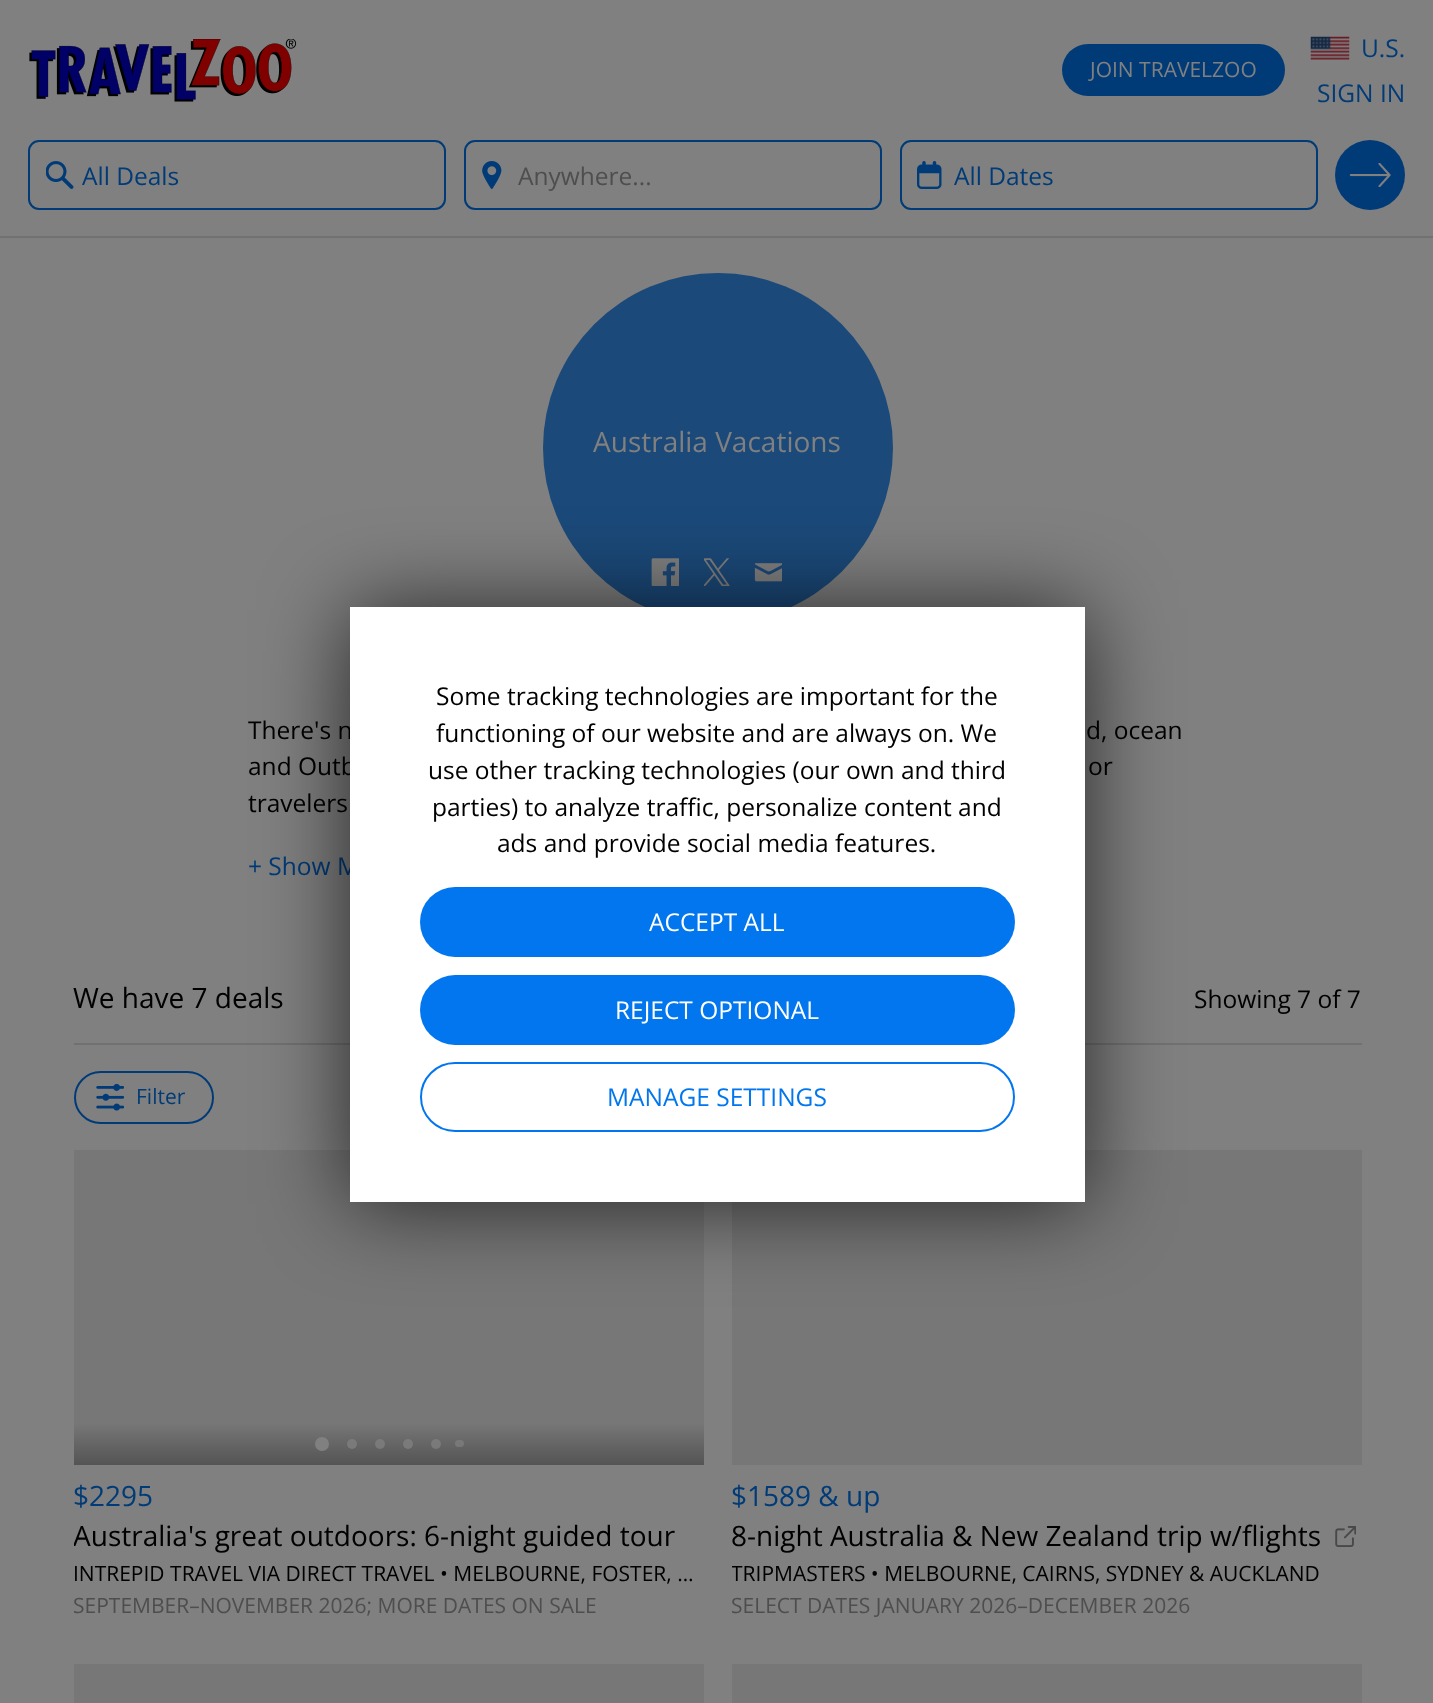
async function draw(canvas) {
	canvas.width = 1433;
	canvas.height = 1703;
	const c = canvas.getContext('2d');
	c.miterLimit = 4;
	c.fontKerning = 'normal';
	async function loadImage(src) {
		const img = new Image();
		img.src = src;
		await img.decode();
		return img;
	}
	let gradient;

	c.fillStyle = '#808080';
	c.fillRect(0, 0, 1433, 1703);
	c.drawImage(await loadImage('img1.png'), 29, 39, 268, 63);
	c.fillStyle = '#013b77';
	c.beginPath();
	c.roundRect(1062, 44, 223, 52, 26);
	c.fill();
	c.font = '21px Open Sans';
	c.fillStyle = '#808080';
	c.fillText('JOIN TRAVELZOO', 1090, 77);
	c.drawImage(await loadImage('img2.png'), 1310, 36, 40, 24);
	c.font = '24.5px Open Sans';
	c.fillStyle = '#013b77';
	c.fillText('U.S.', 1361, 57);
	c.fillText('SIGN IN', 1317, 102);
	c.fillStyle = '#717171';
	c.fillRect(0, 236, 1433, 2);
	c.beginPath();
	c.roundRect(29, 141, 416, 68, 10);
	c.strokeStyle = '#013b77';
	c.lineWidth = 2;
	c.stroke();
	c.drawImage(await loadImage('img3.png'), 46, 161, 28, 28);
	c.fillStyle = '#013b77';
	c.fillText('All Deals', 82, 185);
	c.beginPath();
	c.roundRect(465, 141, 416, 68, 10);
	c.stroke();
	c.drawImage(await loadImage('img4.png'), 482, 161, 20, 28);
	c.fillStyle = '#4e4e4e';
	c.fillText('Anywhere...', 518, 185);
	c.beginPath();
	c.roundRect(901, 141, 416, 68, 10);
	c.stroke();
	c.drawImage(await loadImage('img5.png'), 917, 161, 25, 28);
	c.fillStyle = '#013b77';
	c.fillText('All Dates', 954, 185);
	c.beginPath();
	c.arc(1370, 175, 35, 0, 2 * Math.PI);
	c.fill();
	c.drawImage(await loadImage('img6.png'), 1349, 163, 42, 24);
	c.fillStyle = '#1b4979';
	c.beginPath();
	c.arc(718, 448, 175, 0, 2 * Math.PI);
	c.fill();
	c.font = '28px Open Sans';
	c.fillStyle = '#808080';
	c.fillText('Australia Vacations', 593, 452);
	c.drawImage(await loadImage('img7.png'), 651, 558, 28, 28);
	c.drawImage(await loadImage('img8.png'), 704, 558, 26, 28);
	c.drawImage(await loadImage('img9.png'), 754, 563, 28, 19);
	c.font = '24.5px Open Sans';
	c.fillStyle = '#000';
	for (const [text, x, y] of [
		['There\'s n', 248, 739],
		['d, ocean', 1086, 739],
		['and Outb', 248, 775],
		['or', 1088, 775],
		['travelers', 248, 812],
	]) {
		c.fillText(text, x, y);
	}
	c.fillStyle = '#013b77';
	c.fillText('+ Show M', 248, 875);
	c.font = '28px Open Sans';
	c.fillStyle = '#000';
	c.fillText('We have 7 deals', 73, 1008);
	c.font = '24.5px Open Sans';
	c.fillText('Showing 7 of 7', 1194, 1008);
	c.fillStyle = '#717171';
	c.fillRect(74, 1043, 1288, 2);
	c.beginPath();
	c.roundRect(75, 1072, 138, 51, 25.5);
	c.stroke();
	c.drawImage(await loadImage('img10.png'), 96, 1083, 28, 28);
	c.font = '21px Open Sans';
	c.fillStyle = '#013b77';
	c.fillText('Filter', 136, 1104);
	c.fillStyle = '#777';
	c.fillRect(74, 1150, 630, 273);
	gradient = c.createLinearGradient(389, 1423, 389, 1465);
	gradient.addColorStop(0, '#777');
	gradient.addColorStop(1, '#545454');
	c.fillStyle = gradient;
	c.fillRect(74, 1423, 630, 42);
	c.fillStyle = '#808080';
	c.beginPath();
	c.arc(322, 1444, 7, 0, 2 * Math.PI);
	c.fill();
	c.fillStyle = '#808080cc';
	c.beginPath();
	c.arc(352, 1444, 5, 0, 2 * Math.PI);
	c.fill();
	c.beginPath();
	c.arc(380, 1444, 5, 0, 2 * Math.PI);
	c.fill();
	c.beginPath();
	c.arc(408, 1444, 5, 0, 2 * Math.PI);
	c.fill();
	c.beginPath();
	c.arc(436, 1444, 5, 0, 2 * Math.PI);
	c.fill();
	c.fillStyle = '#808080b3';
	c.beginPath();
	c.roundRect(455, 1440, 9, 7, 3.5);
	c.fill();
	c.font = '28px Open Sans';
	c.fillStyle = '#013b77';
	c.fillText('$2295', 73, 1506);
	c.save();
	c.beginPath();
	c.rect(74, 1519, 630, 37);
	c.clip();
	c.fillStyle = '#000';
	c.fillText('Australia\'s great outdoors: 6-night guided tour', 73, 1546);
	c.restore();
	c.font = '21px Open Sans';
	c.fillStyle = '#000';
	c.fillText('INTREPID TRAVEL VIA DIRECT TRAVEL • MELBOURNE, FOSTER, …', 73, 1581);
	c.save();
	c.beginPath();
	c.rect(74, 1593, 630, 29);
	c.clip();
	c.fillStyle = '#4e4e4e';
	c.fillText('SEPTEMBER–NOVEMBER 2026; MORE DATES ON SALE', 73, 1613);
	c.restore();
	c.fillStyle = '#777';
	c.fillRect(732, 1150, 630, 315);
	c.font = '28px Open Sans';
	c.fillStyle = '#013b77';
	c.fillText('$1589 & up', 731, 1506);
	c.fillStyle = '#000';
	c.fillText('8-night Australia & New Zealand trip w/flights', 731, 1546);
	c.drawImage(await loadImage('img11.png'), 1335, 1526, 21, 21);
	c.save();
	c.beginPath();
	c.rect(732, 1561, 630, 28);
	c.clip();
	c.font = '21px Open Sans';
	c.fillText('TRIPMASTERS • MELBOURNE, CAIRNS, SYDNEY & AUCKLAND', 731, 1581);
	c.restore();
	c.save();
	c.beginPath();
	c.rect(732, 1593, 630, 29);
	c.clip();
	c.font = '21px Open Sans';
	c.fillStyle = '#4e4e4e';
	c.fillText('SELECT DATES JANUARY 2026–DECEMBER 2026', 731, 1613);
	c.restore();
	c.fillStyle = '#777';
	c.fillRect(74, 1664, 630, 39);
	c.fillRect(732, 1664, 630, 39);
	c.fillStyle = '#000000b3';
	c.filter = 'blur(44px)';
	c.beginPath();
	c.rect(350, 609, 735, 595);
	c.fill();
	c.filter = 'none';
	c.fillStyle = '#fff';
	c.fillRect(350, 607, 735, 595);
	c.font = '24.5px Open Sans';
	c.fillStyle = '#000';
	for (const [text, x, y] of [
		['Some tracking technologies are important for the', 436, 705],
		['functioning of our website and are always on. We', 436, 742],
		['use other tracking technologies (our own and third', 428, 779],
		['parties) to analyze traffic, personalize content and', 432, 816],
		['ads and provide social media features.', 497, 852],
	]) {
		c.fillText(text, x, y);
	}
	c.fillStyle = '#0276ee';
	c.beginPath();
	c.roundRect(420, 887, 595, 70, 35);
	c.fill();
	c.fillStyle = '#fff';
	c.fillText('ACCEPT ALL', 649, 931);
	c.fillStyle = '#0276ee';
	c.beginPath();
	c.roundRect(420, 975, 595, 70, 35);
	c.fill();
	c.fillStyle = '#fff';
	c.fillText('REJECT OPTIONAL', 615, 1019);
	c.beginPath();
	c.roundRect(421, 1063, 593, 68, 34);
	c.strokeStyle = '#0276ee';
	c.stroke();
	c.fillStyle = '#0276ee';
	c.fillText('MANAGE SETTINGS', 607, 1106);
}

draw(document.querySelector('canvas'));
